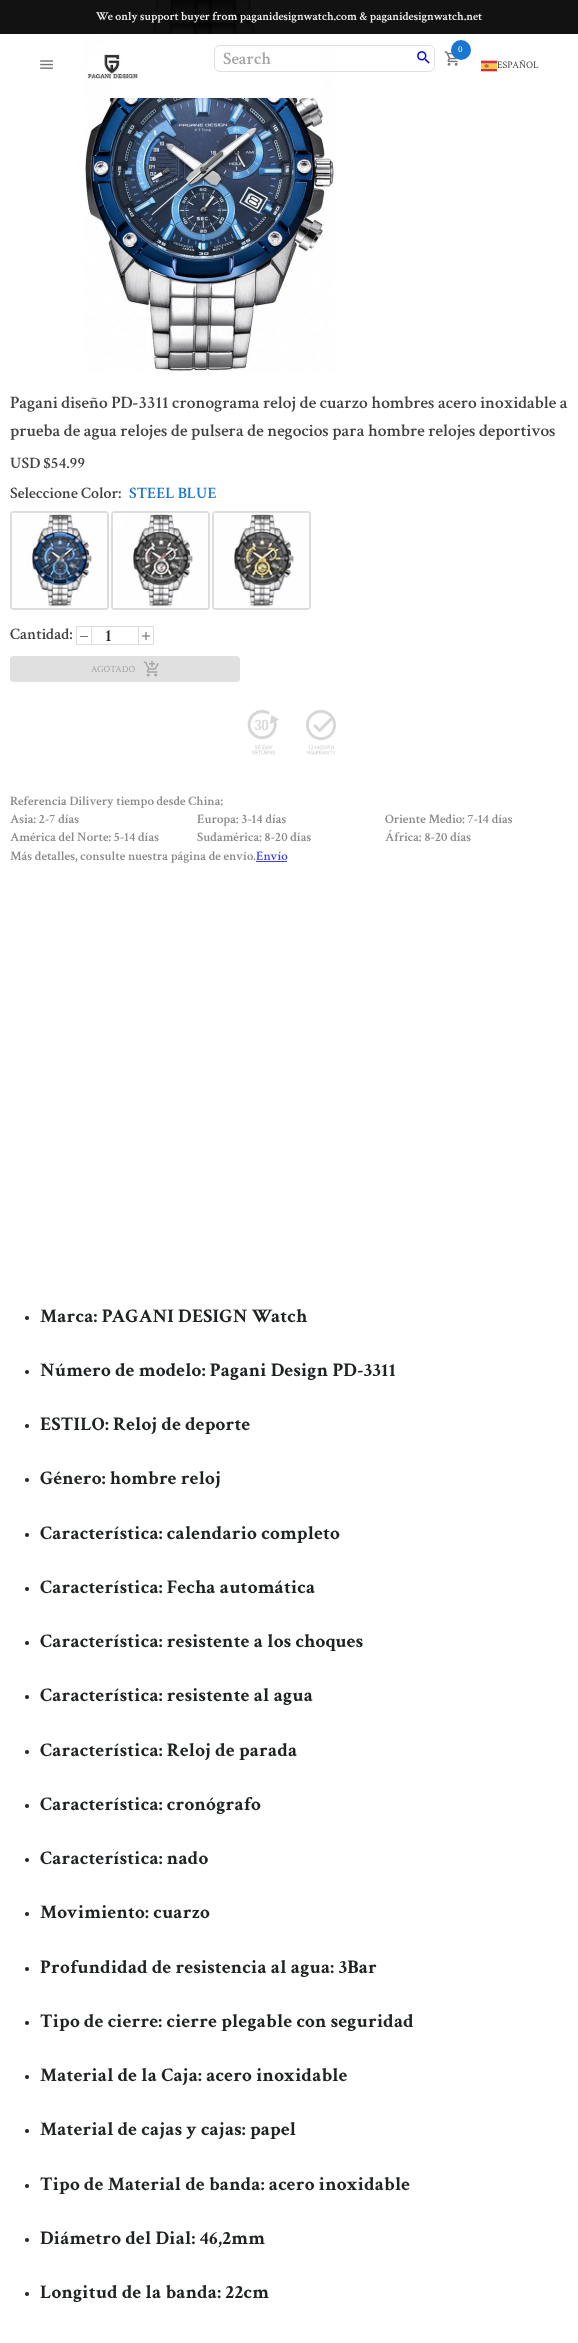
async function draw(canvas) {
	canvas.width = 578;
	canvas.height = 2343;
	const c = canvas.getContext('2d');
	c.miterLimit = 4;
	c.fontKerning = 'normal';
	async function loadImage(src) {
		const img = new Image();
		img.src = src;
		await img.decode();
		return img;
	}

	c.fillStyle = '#fff';
	c.fillRect(0, 0, 578, 2343);
	c.drawImage(await loadImage('img6.png'), 84, 0, 251, 372);
	c.fillStyle = '#000000ed';
	c.fillRect(0, 0, 578, 34);
	c.font = '600 12px Crimson Text';
	c.fillStyle = '#f4f4f4';
	c.fillText('We only support buyer from paganidesignwatch.com & paganidesignwatch.net', 96, 20);
	c.fillStyle = '#fff';
	c.fillRect(110, 34, 212, 64);
	c.drawImage(await loadImage('img1.png'), 40, 60, 13, 9);
	c.drawImage(await loadImage('img2.png'), 87, 54, 51, 25);
	c.drawImage(await loadImage('img3.png'), 444, 51, 14, 15);
	c.fillStyle = '#1976d2';
	c.beginPath();
	c.arc(461, 50, 10, 0, 2 * Math.PI);
	c.fill();
	c.font = '9px Crimson Text';
	c.fillStyle = '#fff';
	c.fillText('0', 458, 52);
	c.beginPath();
	c.roundRect(214.5, 45.5, 220, 26, 5.5);
	c.strokeStyle = '#e0e0e0';
	c.stroke();
	c.font = '600 17.5px Crimson Text';
	c.fillStyle = '#a6a6a6';
	c.fillText('Search', 223, 64);
	c.drawImage(await loadImage('img4.png'), 417, 51, 13, 13);
	c.drawImage(await loadImage('img5.png'), 481, 60, 16, 12);
	c.font = '10px Crimson Text';
	c.fillStyle = '#424242';
	c.fillText('ESPAÑOL', 497, 68);
	c.font = '600 17.5px Crimson Text';
	c.fillText('Pagani diseño PD-3311 cronograma reloj de cuarzo hombres acero inoxidable a', 10, 408);
	c.fillText('prueba de agua relojes de pulsera de negocios para hombre relojes deportivos', 10, 436);
	c.font = '600 16px Crimson Text';
	c.fillText('USD $54.99', 10, 468);
	c.fillText('Seleccione Color:', 10, 498);
	c.fillStyle = '#1976d2';
	c.fillText('STEEL BLUE', 129, 498);
	c.beginPath();
	c.roundRect(11, 512, 97, 97, 3);
	c.strokeStyle = '#ddd';
	c.lineWidth = 2;
	c.stroke();
	c.drawImage(await loadImage('img7.png'), 12, 513, 95, 95);
	c.beginPath();
	c.roundRect(112, 512, 97, 97, 3);
	c.stroke();
	c.drawImage(await loadImage('img8.png'), 113, 513, 95, 95);
	c.beginPath();
	c.roundRect(213, 512, 97, 97, 3);
	c.stroke();
	c.drawImage(await loadImage('img9.png'), 214, 513, 95, 95);
	c.fillStyle = '#424242';
	c.fillText('Cantidad:', 10, 639);
	c.fillStyle = '#757575';
	c.fillRect(80, 636, 8, 1);
	c.drawImage(await loadImage('img10.png'), 141, 631, 10, 10);
	c.lineWidth = 1;
	c.strokeRect(76.5, 626.5, 77, 18);
	c.fillStyle = '#ddd';
	c.fillRect(138, 627, 1, 17);
	c.fillRect(91, 627, 1, 17);
	c.font = '600 17.5px Crimson Text';
	c.fillStyle = '#202324';
	c.fillText('1', 105, 641);
	c.fillStyle = '#e0e0e0';
	c.beginPath();
	c.roundRect(10, 656, 230, 26, 4);
	c.fill();
	c.font = '9.5px Crimson Text';
	c.fillStyle = '#a6a6a6';
	c.fillText('AGOTADO', 91, 672);
	c.drawImage(await loadImage('img11.png'), 143, 660, 16, 17);
	c.drawImage(await loadImage('img12.png'), 247, 709, 32, 46);
	c.drawImage(await loadImage('img13.png'), 306, 709, 30, 46);
	c.font = '600 13px Crimson Text';
	c.fillStyle = '#898989';
	for (const [text, x, y] of [
		['Referencia Dilivery tiempo desde China:', 10, 805],
		['Asia: 2-7 días', 10, 823],
		['Europa: 3-14 días', 197, 823],
		['Oriente Medio: 7-14 días', 385, 823],
		['América del Norte: 5-14 días', 10, 841],
		['Sudamérica: 8-20 días', 197, 841],
		['África: 8-20 días', 385, 841],
		['Más detalles, consulte nuestra página de envío.', 10, 860],
	]) {
		c.fillText(text, x, y);
	}
	c.fillStyle = '#4040f2';
	c.fillText('Envío', 256, 860);
	c.fillRect(256, 861, 31, 1);
	c.fillStyle = '#202324';
	c.beginPath();
	c.arc(27, 1318, 2, 0, 2 * Math.PI);
	c.fill();
	c.letterSpacing = '0.2px';
	c.font = 'bold 19.25px Crimson Text';
	c.fillText('Marca: PAGANI DESIGN Watch', 40, 1322);
	c.beginPath();
	c.arc(27, 1372, 2, 0, 2 * Math.PI);
	c.fill();
	c.fillText('Número de modelo: Pagani Design PD-3311', 40, 1376);
	c.beginPath();
	c.arc(27, 1426, 2, 0, 2 * Math.PI);
	c.fill();
	c.fillText('ESTILO: Reloj de deporte', 40, 1430);
	c.beginPath();
	c.arc(27, 1480, 2, 0, 2 * Math.PI);
	c.fill();
	c.fillText('Género: hombre reloj', 40, 1484);
	c.beginPath();
	c.arc(27, 1535, 2, 0, 2 * Math.PI);
	c.fill();
	c.fillText('Característica: calendario completo', 40, 1539);
	c.beginPath();
	c.arc(27, 1589, 2, 0, 2 * Math.PI);
	c.fill();
	c.fillText('Característica: Fecha automática', 40, 1593);
	c.beginPath();
	c.arc(27, 1643, 2, 0, 2 * Math.PI);
	c.fill();
	c.fillText('Característica: resistente a los choques', 40, 1647);
	c.beginPath();
	c.arc(27, 1697, 2, 0, 2 * Math.PI);
	c.fill();
	c.fillText('Característica: resistente al agua', 40, 1701);
	c.beginPath();
	c.arc(27, 1752, 2, 0, 2 * Math.PI);
	c.fill();
	c.fillText('Característica: Reloj de parada', 40, 1756);
	c.beginPath();
	c.arc(27, 1806, 2, 0, 2 * Math.PI);
	c.fill();
	c.fillText('Característica: cronógrafo', 40, 1810);
	c.beginPath();
	c.arc(27, 1860, 2, 0, 2 * Math.PI);
	c.fill();
	c.fillText('Característica: nado', 40, 1864);
	c.beginPath();
	c.arc(27, 1914, 2, 0, 2 * Math.PI);
	c.fill();
	c.fillText('Movimiento: cuarzo', 40, 1918);
	c.beginPath();
	c.arc(27, 1969, 2, 0, 2 * Math.PI);
	c.fill();
	c.fillText('Profundidad de resistencia al agua: 3Bar', 40, 1973);
	c.beginPath();
	c.arc(27, 2023, 2, 0, 2 * Math.PI);
	c.fill();
	c.fillText('Tipo de cierre: cierre plegable con seguridad', 40, 2027);
	c.beginPath();
	c.arc(27, 2077, 2, 0, 2 * Math.PI);
	c.fill();
	c.fillText('Material de la Caja: acero inoxidable', 40, 2081);
	c.beginPath();
	c.arc(27, 2131, 2, 0, 2 * Math.PI);
	c.fill();
	c.fillText('Material de cajas y cajas: papel', 40, 2135);
	c.beginPath();
	c.arc(27, 2186, 2, 0, 2 * Math.PI);
	c.fill();
	c.fillText('Tipo de Material de banda: acero inoxidable', 40, 2190);
	c.beginPath();
	c.arc(27, 2240, 2, 0, 2 * Math.PI);
	c.fill();
	c.fillText('Diámetro del Dial: 46,2mm', 40, 2244);
	c.beginPath();
	c.arc(27, 2294, 2, 0, 2 * Math.PI);
	c.fill();
	c.fillText('Longitud de la banda: 22cm', 40, 2298);
}

draw(document.querySelector('canvas'));
